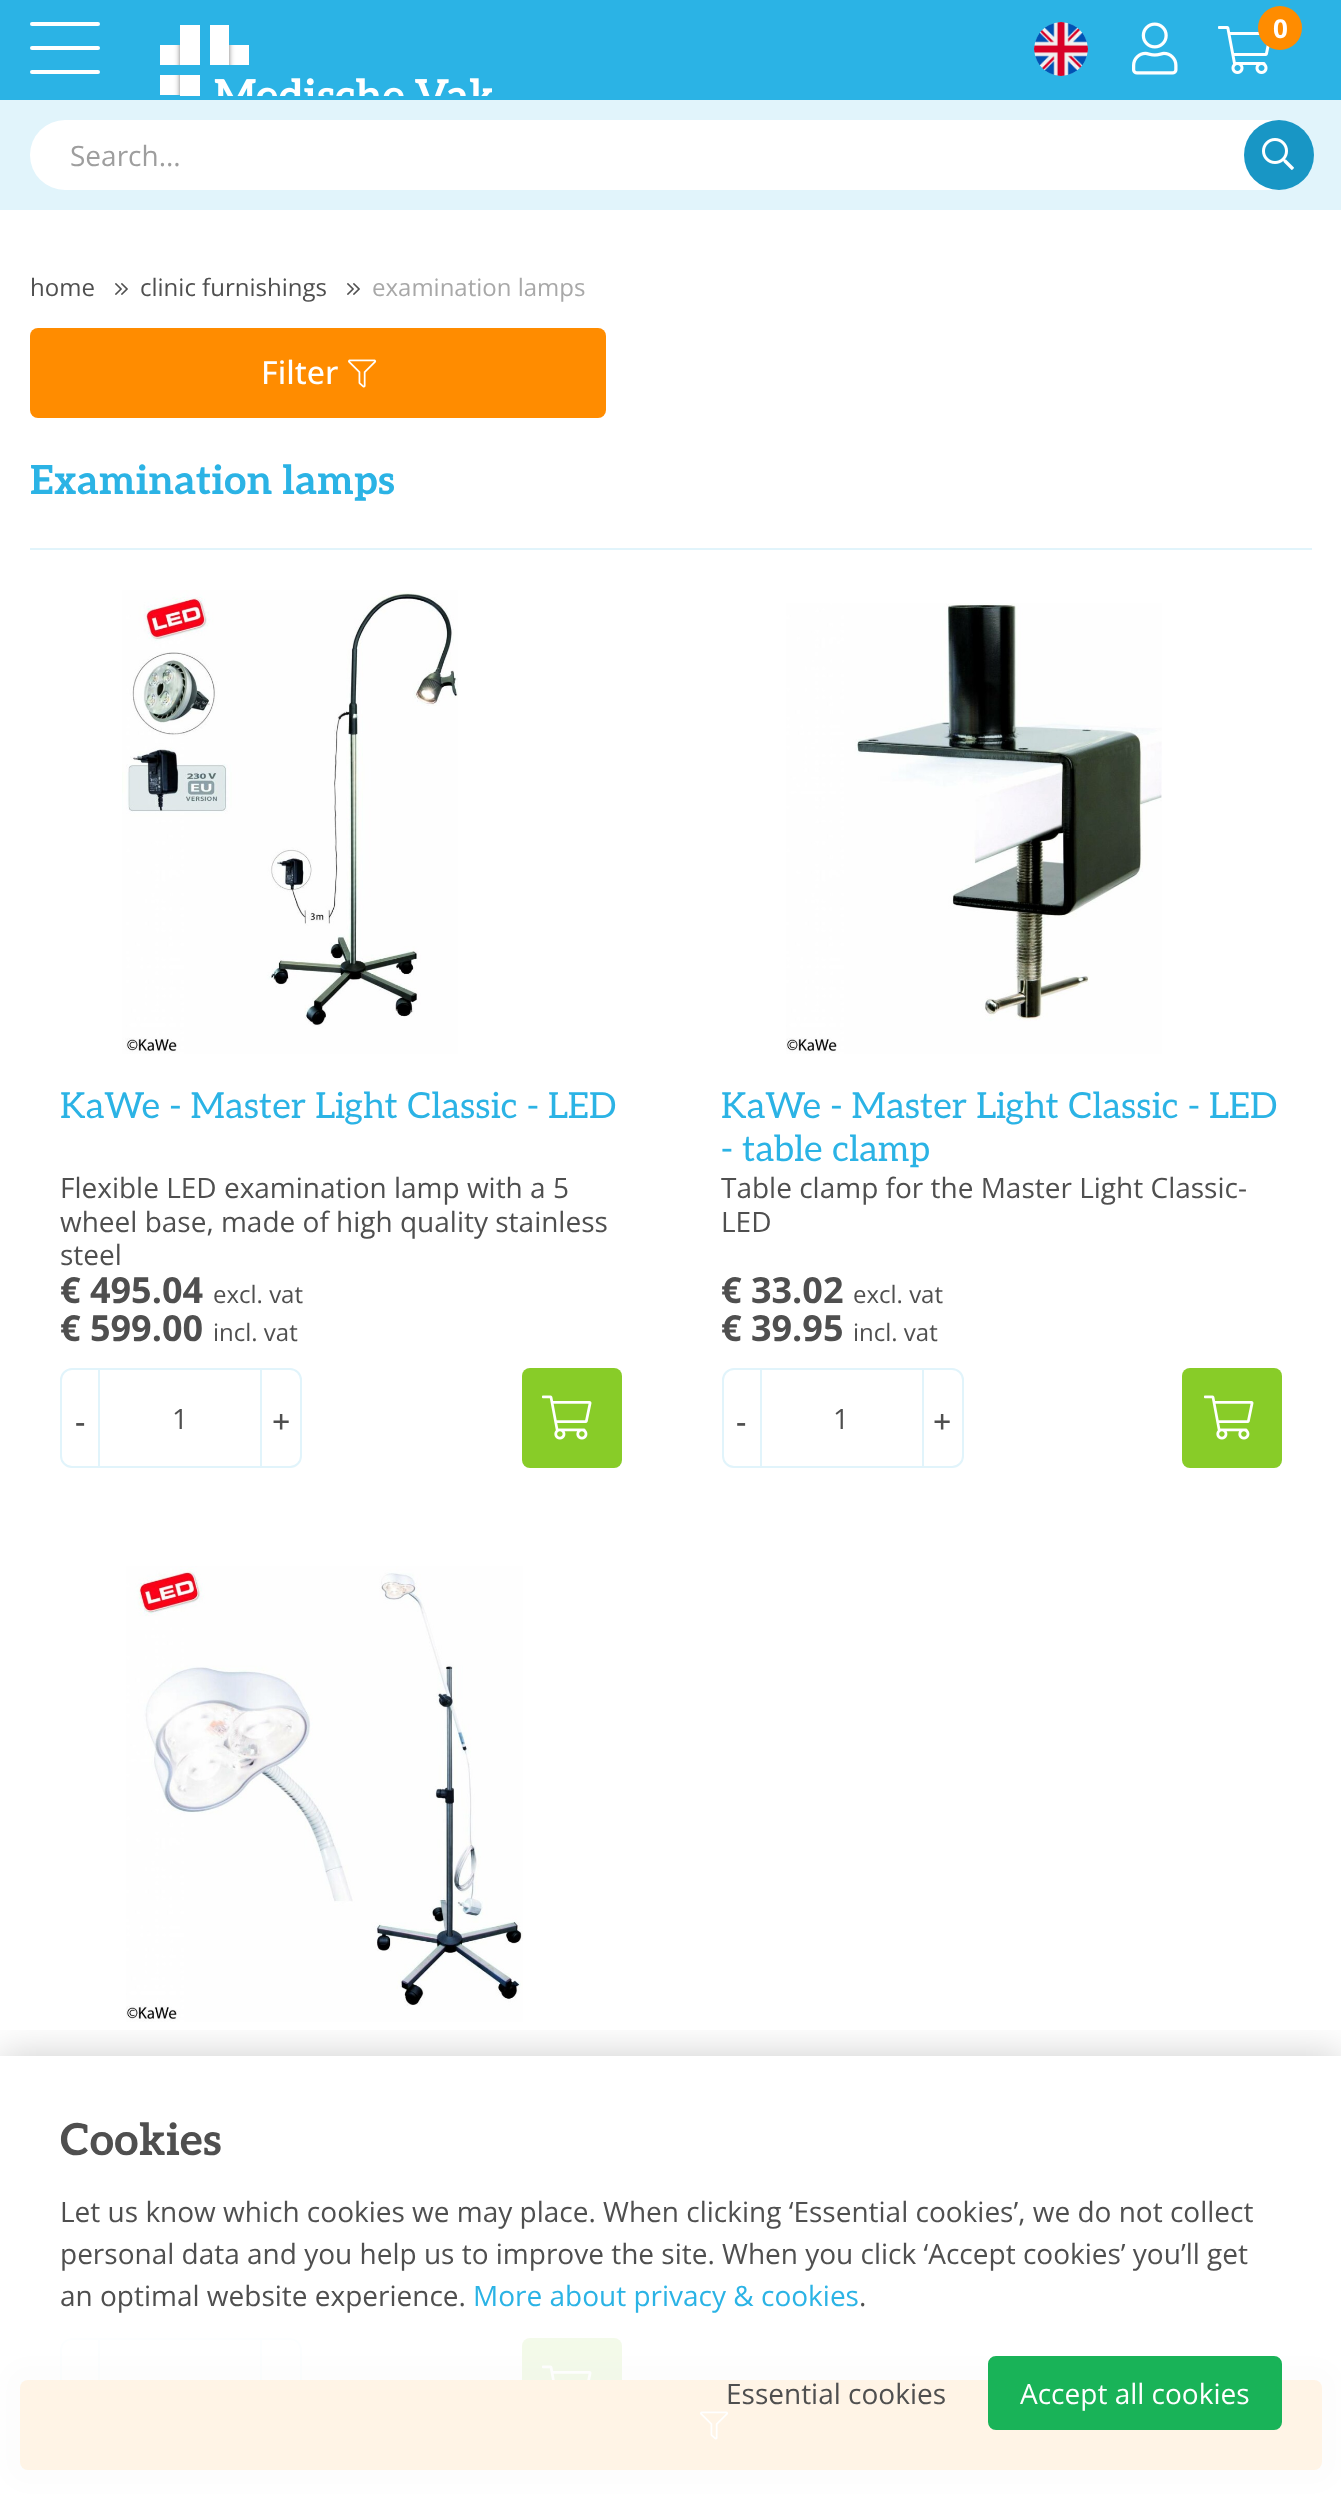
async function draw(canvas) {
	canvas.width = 1341;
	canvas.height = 2499;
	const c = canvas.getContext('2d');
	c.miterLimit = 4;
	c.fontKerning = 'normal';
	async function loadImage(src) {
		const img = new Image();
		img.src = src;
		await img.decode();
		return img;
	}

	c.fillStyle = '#fff';
	c.fillRect(0, 0, 1341, 2499);
	c.fillStyle = '#e1f4fb';
	c.fillRect(0, 100, 1341, 110);
	c.fillStyle = '#2bb3e5';
	c.fillRect(0, 0, 1341, 100);
	c.fillStyle = '#fff';
	c.beginPath();
	c.roundRect(30, 46, 70, 4, 2);
	c.fill();
	c.beginPath();
	c.roundRect(30, 22, 70, 4, 2);
	c.fill();
	c.beginPath();
	c.roundRect(30, 70, 70, 4, 2);
	c.fill();
	c.drawImage(await loadImage('img1.png'), 160, 25, 332, 71);
	c.drawImage(await loadImage('img2.png'), 1034, 22, 54, 54);
	c.drawImage(await loadImage('img3.png'), 1132, 22, 46, 53);
	c.drawImage(await loadImage('img4.png'), 1218, 26, 52, 48);
	c.fillStyle = '#ff8c00';
	c.beginPath();
	c.arc(1280, 28, 22, 0, 2 * Math.PI);
	c.fill();
	c.font = 'bold 26px Open Sans';
	c.fillStyle = '#fff';
	c.fillText('0', 1273, 38);
	c.beginPath();
	c.roundRect(30, 120, 1282, 70, 35);
	c.fill();
	c.font = '28px Open Sans';
	c.fillStyle = '#9e9e9e';
	c.fillText('Search...', 70, 166);
	c.fillStyle = '#1896c5';
	c.beginPath();
	c.arc(1279, 155, 35, 0, 2 * Math.PI);
	c.fill();
	c.drawImage(await loadImage('img5.png'), 1262, 138, 32, 32);
	c.font = '24px Open Sans';
	c.fillStyle = '#4f4f4f';
	c.fillText('home', 30, 296);
	c.drawImage(await loadImage('img6.png'), 115, 283, 13, 12);
	c.fillText('clinic furnishings', 140, 296);
	c.drawImage(await loadImage('img6.png'), 347, 283, 13, 12);
	c.fillStyle = '#a8a8a8';
	c.fillText('examination lamps', 372, 296);
	c.fillStyle = '#ff8c00';
	c.beginPath();
	c.roundRect(30, 328, 576, 90, 8);
	c.fill();
	c.font = '500 32px Open Sans';
	c.fillStyle = '#fff';
	c.fillText('Filter', 261, 384);
	c.drawImage(await loadImage('img7.png'), 348, 359, 29, 29);
	c.font = 'bold 40px Aleo';
	c.fillStyle = '#2bb3e5';
	c.fillText('Examination lamps', 30, 494);
	c.fillStyle = '#e1f4fb';
	c.fillRect(30, 548, 1282, 2);
	c.drawImage(await loadImage('img8.png'), 122, 590, 336, 464);
	c.font = '36px Aleo';
	c.fillStyle = '#2bb3e5';
	c.fillText('KaWe - Master Light Classic - LED', 60, 1118);
	c.font = '28px Open Sans';
	c.fillStyle = '#4f4f4f';
	for (const [text, x, y] of [
		['Flexible LED examination lamp with a 5', 60, 1198],
		['wheel base, made of high quality stainless', 60, 1232],
		['steel', 60, 1265],
	]) {
		c.fillText(text, x, y);
	}
	c.font = 'bold 36px Open Sans';
	c.fillText('€ 495.04', 60, 1303);
	c.font = '24px Open Sans';
	c.fillText('excl. vat', 213, 1303);
	c.font = 'bold 36px Open Sans';
	c.fillText('€ 599.00', 60, 1341);
	c.font = '24px Open Sans';
	c.fillText('incl. vat', 213, 1341);
	c.beginPath();
	c.roundRect(61, 1369, 38, 98, [11, 0, 0, 11]);
	c.strokeStyle = '#e1f4fb';
	c.lineWidth = 2;
	c.stroke();
	c.font = '500 32px Open Sans';
	c.fillText('-', 75, 1433);
	c.fillStyle = '#e1f4fb';
	c.fillRect(100, 1368, 160, 2);
	c.fillRect(100, 1466, 160, 2);
	c.font = '28px Open Sans';
	c.fillStyle = '#4f4f4f';
	c.fillText('1', 172, 1429);
	c.beginPath();
	c.roundRect(261, 1369, 40, 98, [0, 11, 11, 0]);
	c.stroke();
	c.font = '500 32px Open Sans';
	c.fillText('+', 272, 1433);
	c.fillStyle = '#88cc28';
	c.beginPath();
	c.roundRect(522, 1368, 100, 100, 8);
	c.fill();
	c.drawImage(await loadImage('img9.png'), 542, 1395, 50, 45);
	c.drawImage(await loadImage('img10.png'), 786, 603, 376, 451);
	c.font = '36px Aleo';
	c.fillStyle = '#2bb3e5';
	c.fillText('KaWe - Master Light Classic - LED', 721, 1118);
	c.fillText('- table clamp', 721, 1161);
	c.font = '28px Open Sans';
	c.fillStyle = '#4f4f4f';
	c.fillText('Table clamp for the Master Light Classic-', 721, 1198);
	c.fillText('LED', 721, 1232);
	c.font = 'bold 36px Open Sans';
	c.fillText('€ 33.02', 721, 1303);
	c.font = '24px Open Sans';
	c.fillText('excl. vat', 853, 1303);
	c.font = 'bold 36px Open Sans';
	c.fillText('€ 39.95', 721, 1341);
	c.font = '24px Open Sans';
	c.fillText('incl. vat', 853, 1341);
	c.beginPath();
	c.roundRect(723, 1369, 38, 98, [11, 0, 0, 11]);
	c.stroke();
	c.font = '500 32px Open Sans';
	c.fillText('-', 736, 1433);
	c.fillStyle = '#e1f4fb';
	c.fillRect(762, 1368, 160, 2);
	c.fillRect(762, 1466, 160, 2);
	c.font = '28px Open Sans';
	c.fillStyle = '#4f4f4f';
	c.fillText('1', 833, 1429);
	c.beginPath();
	c.roundRect(923, 1369, 40, 98, [0, 11, 11, 0]);
	c.stroke();
	c.font = '500 32px Open Sans';
	c.fillText('+', 933, 1433);
	c.fillStyle = '#88cc28';
	c.beginPath();
	c.roundRect(1182, 1368, 100, 100, 8);
	c.fill();
	c.drawImage(await loadImage('img9.png'), 1204, 1395, 50, 45);
	c.drawImage(await loadImage('img11.png'), 126, 1566, 397, 456);
	c.beginPath();
	c.roundRect(61, 2339, 38, 98, [11, 0, 0, 11]);
	c.stroke();
	c.fillStyle = '#e1f4fb';
	c.fillRect(100, 2338, 160, 2);
	c.beginPath();
	c.roundRect(261, 2339, 40, 98, [0, 11, 11, 0]);
	c.stroke();
	c.fillStyle = '#88cc28';
	c.beginPath();
	c.roundRect(522, 2338, 100, 100, 8);
	c.fill();
	c.drawImage(await loadImage('img12.png'), 542, 2365, 50, 15);
	c.fillStyle = '#0000001a';
	c.filter = 'blur(10px)';
	c.beginPath();
	c.roundRect(0, 2360, 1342, 130, 28);
	c.fill();
	c.filter = 'none';
	c.fillStyle = '#ff8c00';
	c.beginPath();
	c.roundRect(20, 2380, 1302, 90, 8);
	c.fill();
	c.drawImage(await loadImage('img7.png'), 700, 2411, 29, 29);
	c.save();
	c.beginPath();
	c.rect(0, 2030, 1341, 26);
	c.clip();
	c.fillStyle = '#00000033';
	c.filter = 'blur(20px)';
	c.beginPath();
	c.rect(0, 2056, 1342, 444);
	c.fill();
	c.filter = 'none';
	c.restore();
	c.fillStyle = '#ffffffe6';
	c.fillRect(0, 2338, 1341, 161);
	c.font = 'bold 44px Aleo';
	c.fillStyle = '#4f4f4f';
	c.fillText('Cookies', 60, 2155);
	c.font = '28px Open Sans';
	for (const [text, x, y] of [
		['Let us know which cookies we may place. When clicking ‘Essential cookies’, we do not collect', 60, 2222],
		['personal data and you help us to improve the site. When you click ‘Accept cookies’ you’ll get', 60, 2264],
		['an optimal website experience.', 60, 2306],
	]) {
		c.fillText(text, x, y);
	}
	c.fillStyle = '#2bb3e5';
	c.fillText('More about privacy & cookies', 473, 2306);
	c.fillStyle = '#4f4f4f';
	c.fillText('.', 859, 2306);
	c.fillText('Essential cookies', 726, 2404);
	c.fillStyle = '#19b358';
	c.beginPath();
	c.roundRect(989, 2357, 292, 72, 7);
	c.fill();
	c.strokeStyle = '#19b358';
	c.stroke();
	c.fillStyle = '#fff';
	c.fillText('Accept all cookies', 1020, 2404);
}

draw(document.querySelector('canvas'));
